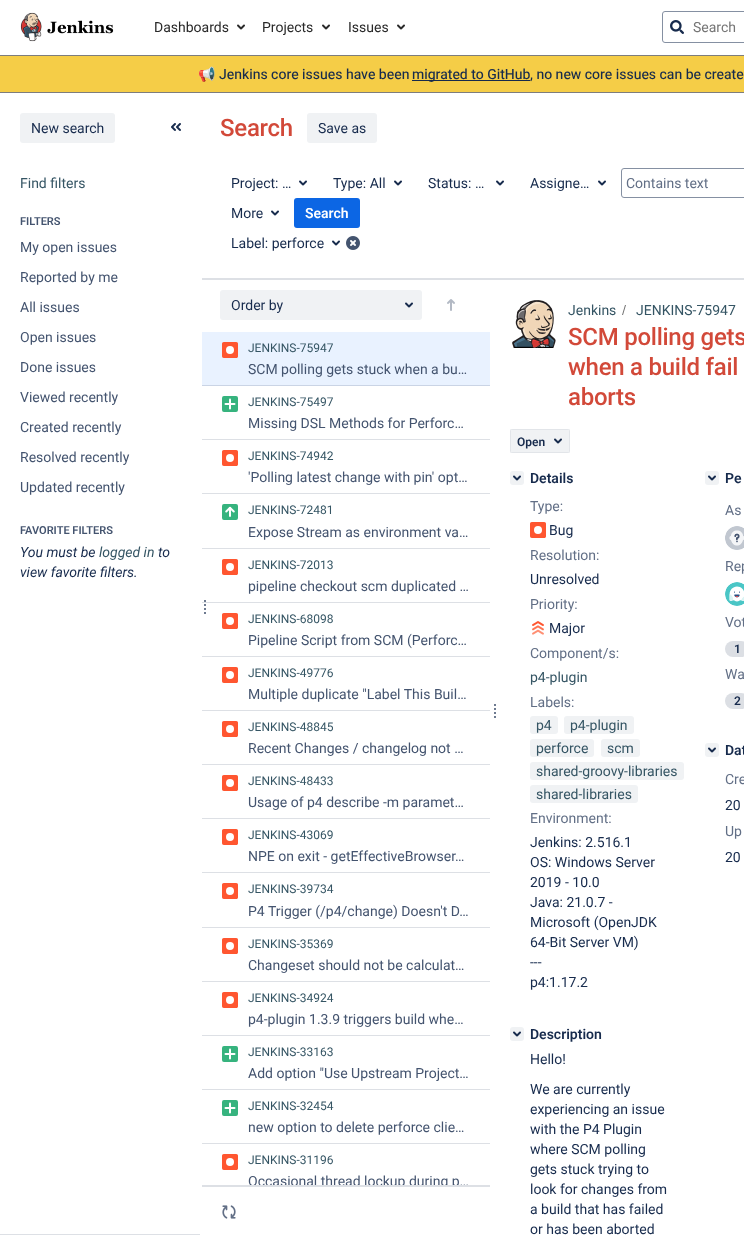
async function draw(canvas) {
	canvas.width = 744;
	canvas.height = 1235;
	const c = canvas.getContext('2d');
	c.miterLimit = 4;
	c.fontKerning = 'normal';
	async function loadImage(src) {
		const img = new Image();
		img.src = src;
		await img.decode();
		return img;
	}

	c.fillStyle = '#fff';
	c.fillRect(0, 0, 744, 1235);
	c.fillStyle = '#7d7d7d';
	c.fillRect(0, 55, 744, 1);
	c.drawImage(await loadImage('img1.png'), 20, 12, 94, 30);
	c.font = '14px "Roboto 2"';
	c.fillStyle = '#292929';
	c.fillText('Dashboards', 154, 32);
	c.drawImage(await loadImage('img2.png'), 237, 24, 8, 6);
	c.fillText('Projects', 262, 32);
	c.drawImage(await loadImage('img2.png'), 322, 24, 8, 6);
	c.fillText('Issues', 348, 32);
	c.drawImage(await loadImage('img2.png'), 397, 24, 8, 6);
	c.beginPath();
	c.roundRect(662.5, 11.5, 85, 31, 2.5);
	c.strokeStyle = '#8590a2';
	c.stroke();
	c.drawImage(await loadImage('img3.png'), 670, 20, 14, 14);
	c.fillStyle = '#757575';
	c.fillText('Search', 693, 32);
	c.fillStyle = '#f5cd47';
	c.fillRect(0, 56, 744, 36);
	c.fillStyle = '#7d7d7d';
	c.fillRect(0, 92, 744, 1);
	c.font = '14px Noto Color Emoji';
	c.fillStyle = '#172b4d';
	c.fillText('📢', 198, 79);
	c.font = '14px Roboto';
	c.fillText('Jenkins core issues have been', 219, 79);
	c.fillRect(412, 80, 118, 1);
	c.fillText('migrated to GitHub', 412, 79);
	c.fillText(', no new core issues can be create', 530, 79);
	c.fillStyle = '#dde0e5';
	c.fillRect(0, 1234, 200, 1);
	c.fillStyle = '#f0f2f4';
	c.beginPath();
	c.roundRect(20, 113, 95, 30, 3);
	c.fill();
	c.font = '14px "Roboto 2"';
	c.fillStyle = '#172b4d';
	c.fillText('New search', 31, 133);
	c.drawImage(await loadImage('img4.png'), 171, 123, 10, 8);
	c.fillStyle = '#355564';
	c.fillText('Find filters', 20, 188);
	c.font = '600 11px Roboto';
	c.fillStyle = '#44546f';
	c.fillText('FILTERS', 20, 225);
	c.font = '14px "Roboto 2"';
	for (const [text, x, y] of [
		['My open issues', 20, 252],
		['Reported by me', 20, 282],
		['All issues', 20, 312],
		['Open issues', 20, 342],
		['Done issues', 20, 372],
		['Viewed recently', 20, 402],
		['Created recently', 20, 432],
		['Resolved recently', 20, 462],
		['Updated recently', 20, 492],
	]) {
		c.fillText(text, x, y);
	}
	c.font = '600 11px Roboto';
	c.fillText('FAVORITE FILTERS', 20, 534);
	c.font = 'italic 14px Roboto';
	c.fillStyle = '#172b4d';
	c.fillText('You must be', 20, 557);
	c.fillStyle = '#355564';
	c.fillText('logged in', 99, 557);
	c.fillStyle = '#172b4d';
	c.fillText('to', 158, 557);
	c.fillText('view favorite filters.', 20, 577);
	for (const [x, y, w, h, color] of [
		[200, 278, 544, 2, '#dde0e5'],
		[200, 1185, 290, 2, '#dde0e5'],
		[200, 278, 2, 909, '#fff'],
		[202, 602, 288, 1, '#dde0e5'],
	]) {
		c.fillStyle = color;
		c.fillRect(x, y, w, h);
	}
	c.drawImage(await loadImage('img5.png'), 204, 600, 2, 14);
	c.letterSpacing = '-0.25px';
	c.font = '500 24px Roboto';
	c.fillStyle = '#d24939';
	c.fillText('Search', 220, 136);
	c.fillStyle = '#f0f2f4';
	c.beginPath();
	c.roundRect(307, 113, 70, 30, 3);
	c.fill();
	c.letterSpacing = '0px';
	c.font = '14px "Roboto 2"';
	c.fillStyle = '#172b4d';
	c.fillText('Save as', 318, 133);
	c.fillText('Project: …', 231, 188);
	c.drawImage(await loadImage('img6.png'), 299, 180, 8, 6);
	c.fillText('Type: All', 333, 188);
	c.drawImage(await loadImage('img6.png'), 394, 180, 8, 6);
	c.fillText('Status: …', 428, 188);
	c.drawImage(await loadImage('img6.png'), 496, 180, 8, 6);
	c.fillText('Assigne…', 530, 188);
	c.drawImage(await loadImage('img6.png'), 598, 180, 8, 6);
	c.beginPath();
	c.roundRect(621.5, 168.5, 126, 29, 2.5);
	c.stroke();
	c.fillStyle = '#626f86';
	c.fillText('Contains text', 626, 188);
	c.fillStyle = '#172b4d';
	c.fillText('More', 231, 218);
	c.drawImage(await loadImage('img6.png'), 271, 210, 8, 6);
	c.fillStyle = '#0c66e4';
	c.beginPath();
	c.roundRect(294, 198, 66, 30, 3);
	c.fill();
	c.font = '600 14px Roboto';
	c.fillStyle = '#fff';
	c.fillText('Search', 305, 218);
	c.font = '14px "Roboto 2"';
	c.fillStyle = '#172b4d';
	c.fillText('Label: perforce', 231, 248);
	c.drawImage(await loadImage('img6.png'), 332, 240, 8, 6);
	c.drawImage(await loadImage('img7.png'), 346, 236, 14, 14);
	c.fillStyle = '#f0f2f4';
	c.beginPath();
	c.roundRect(220, 290, 202, 30, 3);
	c.fill();
	c.fillStyle = '#172b4d';
	c.fillText('Order by', 231, 310);
	c.drawImage(await loadImage('img8.png'), 405, 302, 8, 6);
	c.drawImage(await loadImage('img9.png'), 447, 299, 8, 12);
	c.fillStyle = '#e9f2ff';
	c.fillRect(202, 332, 288, 53);
	c.fillStyle = '#cad4e5';
	c.fillRect(202, 385, 288, 1);
	c.drawImage(await loadImage('img10.png'), 222, 342, 16, 16);
	c.font = '12px "Roboto 2"';
	c.fillStyle = '#355564';
	c.fillText('JENKINS-75947', 248, 352);
	c.font = '14px "Roboto 2"';
	c.fillStyle = '#44546f';
	c.fillText('SCM polling gets stuck when a bu…', 248, 374);
	c.fillStyle = '#dde0e5';
	c.fillRect(202, 439, 288, 1);
	c.drawImage(await loadImage('img11.png'), 222, 396, 16, 16);
	c.font = '12px "Roboto 2"';
	c.fillStyle = '#355564';
	c.fillText('JENKINS-75497', 248, 406);
	c.font = '14px "Roboto 2"';
	c.fillStyle = '#44546f';
	c.fillText('Missing DSL Methods for Perforc…', 248, 428);
	c.fillStyle = '#dde0e5';
	c.fillRect(202, 493, 288, 1);
	c.drawImage(await loadImage('img12.png'), 222, 450, 16, 16);
	c.font = '12px "Roboto 2"';
	c.fillStyle = '#355564';
	c.fillText('JENKINS-74942', 248, 460);
	c.font = '14px "Roboto 2"';
	c.fillStyle = '#44546f';
	c.fillText('\'Polling latest change with pin\' opt…', 248, 482);
	c.fillStyle = '#dde0e5';
	c.fillRect(202, 548, 288, 1);
	c.drawImage(await loadImage('img13.png'), 222, 504, 16, 16);
	c.font = '12px "Roboto 2"';
	c.fillStyle = '#355564';
	c.fillText('JENKINS-72481', 248, 514);
	c.font = '14px "Roboto 2"';
	c.fillStyle = '#44546f';
	c.fillText('Expose Stream as environment va…', 248, 537);
	c.drawImage(await loadImage('img12.png'), 222, 559, 16, 16);
	c.font = '12px "Roboto 2"';
	c.fillStyle = '#355564';
	c.fillText('JENKINS-72013', 248, 569);
	c.font = '14px "Roboto 2"';
	c.fillStyle = '#44546f';
	c.fillText('pipeline checkout scm duplicated …', 248, 591);
	c.fillStyle = '#dde0e5';
	c.fillRect(202, 656, 288, 1);
	c.drawImage(await loadImage('img12.png'), 222, 613, 16, 16);
	c.font = '12px "Roboto 2"';
	c.fillStyle = '#355564';
	c.fillText('JENKINS-68098', 248, 623);
	c.font = '14px "Roboto 2"';
	c.fillStyle = '#44546f';
	c.fillText('Pipeline Script from SCM (Perforc…', 248, 645);
	c.fillStyle = '#dde0e5';
	c.fillRect(202, 710, 288, 1);
	c.drawImage(await loadImage('img12.png'), 222, 667, 16, 16);
	c.font = '12px "Roboto 2"';
	c.fillStyle = '#355564';
	c.fillText('JENKINS-49776', 248, 677);
	c.font = '14px "Roboto 2"';
	c.fillStyle = '#44546f';
	c.fillText('Multiple duplicate "Label This Buil…', 248, 699);
	c.fillStyle = '#dde0e5';
	c.fillRect(202, 764, 288, 1);
	c.drawImage(await loadImage('img12.png'), 222, 721, 16, 16);
	c.font = '12px "Roboto 2"';
	c.fillStyle = '#355564';
	c.fillText('JENKINS-48845', 248, 731);
	c.font = '14px "Roboto 2"';
	c.fillStyle = '#44546f';
	c.fillText('Recent Changes / changelog not …', 248, 753);
	c.fillStyle = '#dde0e5';
	c.fillRect(202, 818, 288, 1);
	c.drawImage(await loadImage('img12.png'), 222, 775, 16, 16);
	c.font = '12px "Roboto 2"';
	c.fillStyle = '#355564';
	c.fillText('JENKINS-48433', 248, 785);
	c.font = '14px "Roboto 2"';
	c.fillStyle = '#44546f';
	c.fillText('Usage of p4 describe -m paramet…', 248, 807);
	c.fillStyle = '#dde0e5';
	c.fillRect(202, 872, 288, 1);
	c.drawImage(await loadImage('img12.png'), 222, 829, 16, 16);
	c.font = '12px "Roboto 2"';
	c.fillStyle = '#355564';
	c.fillText('JENKINS-43069', 248, 839);
	c.font = '14px "Roboto 2"';
	c.fillStyle = '#44546f';
	c.fillText('NPE on exit - getEffectiveBrowser…', 248, 861);
	c.fillStyle = '#dde0e5';
	c.fillRect(202, 927, 288, 1);
	c.drawImage(await loadImage('img12.png'), 222, 883, 16, 16);
	c.font = '12px "Roboto 2"';
	c.fillStyle = '#355564';
	c.fillText('JENKINS-39734', 248, 893);
	c.font = '14px "Roboto 2"';
	c.fillStyle = '#44546f';
	c.fillText('P4 Trigger (/p4/change) Doesn\'t D…', 248, 916);
	c.fillStyle = '#dde0e5';
	c.fillRect(202, 981, 288, 1);
	c.drawImage(await loadImage('img12.png'), 222, 938, 16, 16);
	c.font = '12px "Roboto 2"';
	c.fillStyle = '#355564';
	c.fillText('JENKINS-35369', 248, 948);
	c.font = '14px "Roboto 2"';
	c.fillStyle = '#44546f';
	c.fillText('Changeset should not be calculat…', 248, 970);
	c.fillStyle = '#dde0e5';
	c.fillRect(202, 1035, 288, 1);
	c.drawImage(await loadImage('img12.png'), 222, 992, 16, 16);
	c.font = '12px "Roboto 2"';
	c.fillStyle = '#355564';
	c.fillText('JENKINS-34924', 248, 1002);
	c.font = '14px "Roboto 2"';
	c.fillStyle = '#44546f';
	c.fillText('p4-plugin 1.3.9 triggers build whe…', 248, 1024);
	c.fillStyle = '#dde0e5';
	c.fillRect(202, 1089, 288, 1);
	c.drawImage(await loadImage('img14.png'), 222, 1046, 16, 16);
	c.font = '12px "Roboto 2"';
	c.fillStyle = '#355564';
	c.fillText('JENKINS-33163', 248, 1056);
	c.font = '14px "Roboto 2"';
	c.fillStyle = '#44546f';
	c.fillText('Add option "Use Upstream Project…', 248, 1078);
	c.fillStyle = '#dde0e5';
	c.fillRect(202, 1143, 288, 1);
	c.drawImage(await loadImage('img11.png'), 222, 1100, 16, 16);
	c.font = '12px "Roboto 2"';
	c.fillStyle = '#355564';
	c.fillText('JENKINS-32454', 248, 1110);
	c.font = '14px "Roboto 2"';
	c.fillStyle = '#44546f';
	c.fillText('new option to delete perforce clie…', 248, 1132);
	c.drawImage(await loadImage('img12.png'), 222, 1154, 16, 16);
	c.font = '12px "Roboto 2"';
	c.fillStyle = '#355564';
	c.fillText('JENKINS-31196', 248, 1164);
	c.save();
	c.beginPath();
	c.rect(248, 1171, 222, 14);
	c.clip();
	c.font = '14px "Roboto 2"';
	c.fillStyle = '#44546f';
	c.fillText('Occasional thread lockup during p…', 248, 1186);
	c.restore();
	c.drawImage(await loadImage('img15.png'), 222, 1205, 14, 14);
	c.drawImage(await loadImage('img16.png'), 494, 704, 2, 14);
	c.drawImage(await loadImage('img17.png'), 512, 300, 44, 48);
	c.font = '14px "Roboto 2"';
	c.fillText('Jenkins', 568, 315);
	c.fillStyle = '#707070';
	c.beginPath();
	c.moveTo(623, 315);
	c.lineTo(626, 305);
	c.lineTo(625, 305);
	c.lineTo(622, 315);
	c.closePath();
	c.fill();
	c.fillStyle = '#355564';
	c.fillText('JENKINS-75947', 636, 315);
	c.letterSpacing = '-0.25px';
	c.font = '500 24px Roboto';
	c.fillStyle = '#d24939';
	for (const [text, x, y] of [
		['SCM polling gets', 568, 345],
		['when a build fail', 568, 375],
		['aborts', 568, 405],
	]) {
		c.fillText(text, x, y);
	}
	c.fillStyle = '#f0f2f4';
	c.beginPath();
	c.roundRect(510, 429, 60, 24, 3);
	c.fill();
	c.strokeStyle = '#091e420f';
	c.strokeRect(510.5, 429.5, 59, 23);
	c.letterSpacing = '0px';
	c.font = '600 12px Roboto';
	c.fillStyle = '#172b4d';
	c.fillText('Open', 517, 446);
	c.drawImage(await loadImage('img8.png'), 554, 438, 8, 6);
	c.fillStyle = '#f0f2f4';
	c.beginPath();
	c.roundRect(510, 471, 14, 14, 3);
	c.fill();
	c.drawImage(await loadImage('img18.png'), 513, 475, 8, 6);
	c.font = '600 14px Roboto';
	c.fillStyle = '#172b4d';
	c.fillText('Details', 530, 483);
	c.font = '14px "Roboto 2"';
	c.fillStyle = '#626f86';
	c.fillText('Type:', 530, 511);
	c.drawImage(await loadImage('img12.png'), 530, 522, 16, 16);
	c.fillStyle = '#172b4d';
	c.fillText('Bug', 549, 535);
	c.fillStyle = '#626f86';
	c.fillText('Resolution:', 530, 560);
	c.fillStyle = '#172b4d';
	c.fillText('Unresolved', 530, 584);
	c.fillStyle = '#626f86';
	c.fillText('Priority:', 530, 609);
	c.drawImage(await loadImage('img19.png'), 532, 621, 12, 14);
	c.fillStyle = '#172b4d';
	c.fillText('Major', 549, 633);
	c.fillStyle = '#626f86';
	c.fillText('Component/s:', 530, 658);
	c.fillStyle = '#355564';
	c.fillText('p4-plugin', 530, 682);
	c.fillStyle = '#626f86';
	c.fillText('Labels:', 530, 707);
	c.fillStyle = '#f0f2f4';
	c.beginPath();
	c.roundRect(530, 716, 28, 18, 3);
	c.fill();
	c.fillStyle = '#355564';
	c.fillText('p4', 536, 730);
	c.fillStyle = '#f0f2f4';
	c.beginPath();
	c.roundRect(564, 716, 70, 18, 3);
	c.fill();
	c.fillStyle = '#355564';
	c.fillText('p4-plugin', 570, 730);
	c.fillStyle = '#f0f2f4';
	c.beginPath();
	c.roundRect(530, 739, 64, 18, 3);
	c.fill();
	c.fillStyle = '#355564';
	c.fillText('perforce', 536, 753);
	c.fillStyle = '#f0f2f4';
	c.beginPath();
	c.roundRect(601, 739, 39, 18, 3);
	c.fill();
	c.fillStyle = '#355564';
	c.fillText('scm', 607, 753);
	c.fillStyle = '#f0f2f4';
	c.beginPath();
	c.roundRect(530, 762, 154, 18, 3);
	c.fill();
	c.fillStyle = '#355564';
	c.fillText('shared-groovy-libraries', 536, 776);
	c.fillStyle = '#f0f2f4';
	c.beginPath();
	c.roundRect(530, 785, 108, 18, 3);
	c.fill();
	c.fillStyle = '#355564';
	c.fillText('shared-libraries', 536, 799);
	c.fillStyle = '#626f86';
	c.fillText('Environment:', 530, 823);
	c.fillStyle = '#172b4d';
	for (const [text, x, y] of [
		['Jenkins: 2.516.1', 530, 847],
		['OS: Windows Server', 530, 867],
		['2019 - 10.0', 530, 887],
		['Java: 21.0.7 -', 530, 907],
		['Microsoft (OpenJDK', 530, 927],
		['64-Bit Server VM)', 530, 947],
		['---', 530, 967],
		['p4:1.17.2', 530, 987],
	]) {
		c.fillText(text, x, y);
	}
	c.fillStyle = '#f0f2f4';
	c.beginPath();
	c.roundRect(510, 1027, 14, 14, 3);
	c.fill();
	c.drawImage(await loadImage('img18.png'), 513, 1031, 8, 6);
	c.font = '600 14px Roboto';
	c.fillStyle = '#172b4d';
	c.fillText('Description', 530, 1039);
	c.font = '14px "Roboto 2"';
	for (const [text, x, y] of [
		['Hello!', 530, 1064],
		['We are currently', 530, 1094],
		['experiencing an issue', 530, 1114],
		['with the P4 Plugin', 530, 1134],
		['where SCM polling', 530, 1154],
		['gets stuck trying to', 530, 1174],
		['look for changes from', 530, 1194],
		['a build that has failed', 530, 1214],
		['or has been aborted', 530, 1234],
	]) {
		c.fillText(text, x, y);
	}
	c.fillStyle = '#f0f2f4';
	c.beginPath();
	c.roundRect(705, 471, 14, 14, 3);
	c.fill();
	c.drawImage(await loadImage('img18.png'), 708, 475, 8, 6);
	c.font = '600 14px Roboto';
	c.fillStyle = '#172b4d';
	c.fillText('Pe', 725, 483);
	c.font = '14px "Roboto 2"';
	c.fillStyle = '#626f86';
	c.fillText('As', 725, 515);
	c.drawImage(await loadImage('img20.png'), 725, 526, 19, 24);
	c.fillText('Rep', 725, 571);
	c.drawImage(await loadImage('img21.png'), 725, 582, 19, 24);
	c.fillText('Vot', 725, 627);
	c.fillStyle = '#dcdfe4';
	c.beginPath();
	c.roundRect(725, 641, 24, 16, 8);
	c.fill();
	c.font = '600 12px Roboto';
	c.fillStyle = '#172b4d';
	c.fillText('1', 734, 653);
	c.font = '14px "Roboto 2"';
	c.fillStyle = '#626f86';
	c.fillText('Wa', 725, 679);
	c.fillStyle = '#dcdfe4';
	c.beginPath();
	c.roundRect(725, 693, 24, 16, 8);
	c.fill();
	c.font = '600 12px Roboto';
	c.fillStyle = '#172b4d';
	c.fillText('2', 734, 705);
	c.fillStyle = '#f0f2f4';
	c.beginPath();
	c.roundRect(705, 743, 14, 14, 3);
	c.fill();
	c.drawImage(await loadImage('img18.png'), 708, 747, 8, 6);
	c.font = '600 14px Roboto';
	c.fillStyle = '#172b4d';
	c.fillText('Dat', 725, 755);
	c.font = '14px "Roboto 2"';
	c.fillStyle = '#626f86';
	c.fillText('Cre', 725, 784);
	c.fillStyle = '#172b4d';
	c.fillText('20', 725, 810);
	c.fillStyle = '#626f86';
	c.fillText('Up', 725, 836);
	c.fillStyle = '#172b4d';
	c.fillText('20', 725, 862);
}

draw(document.querySelector('canvas'));
